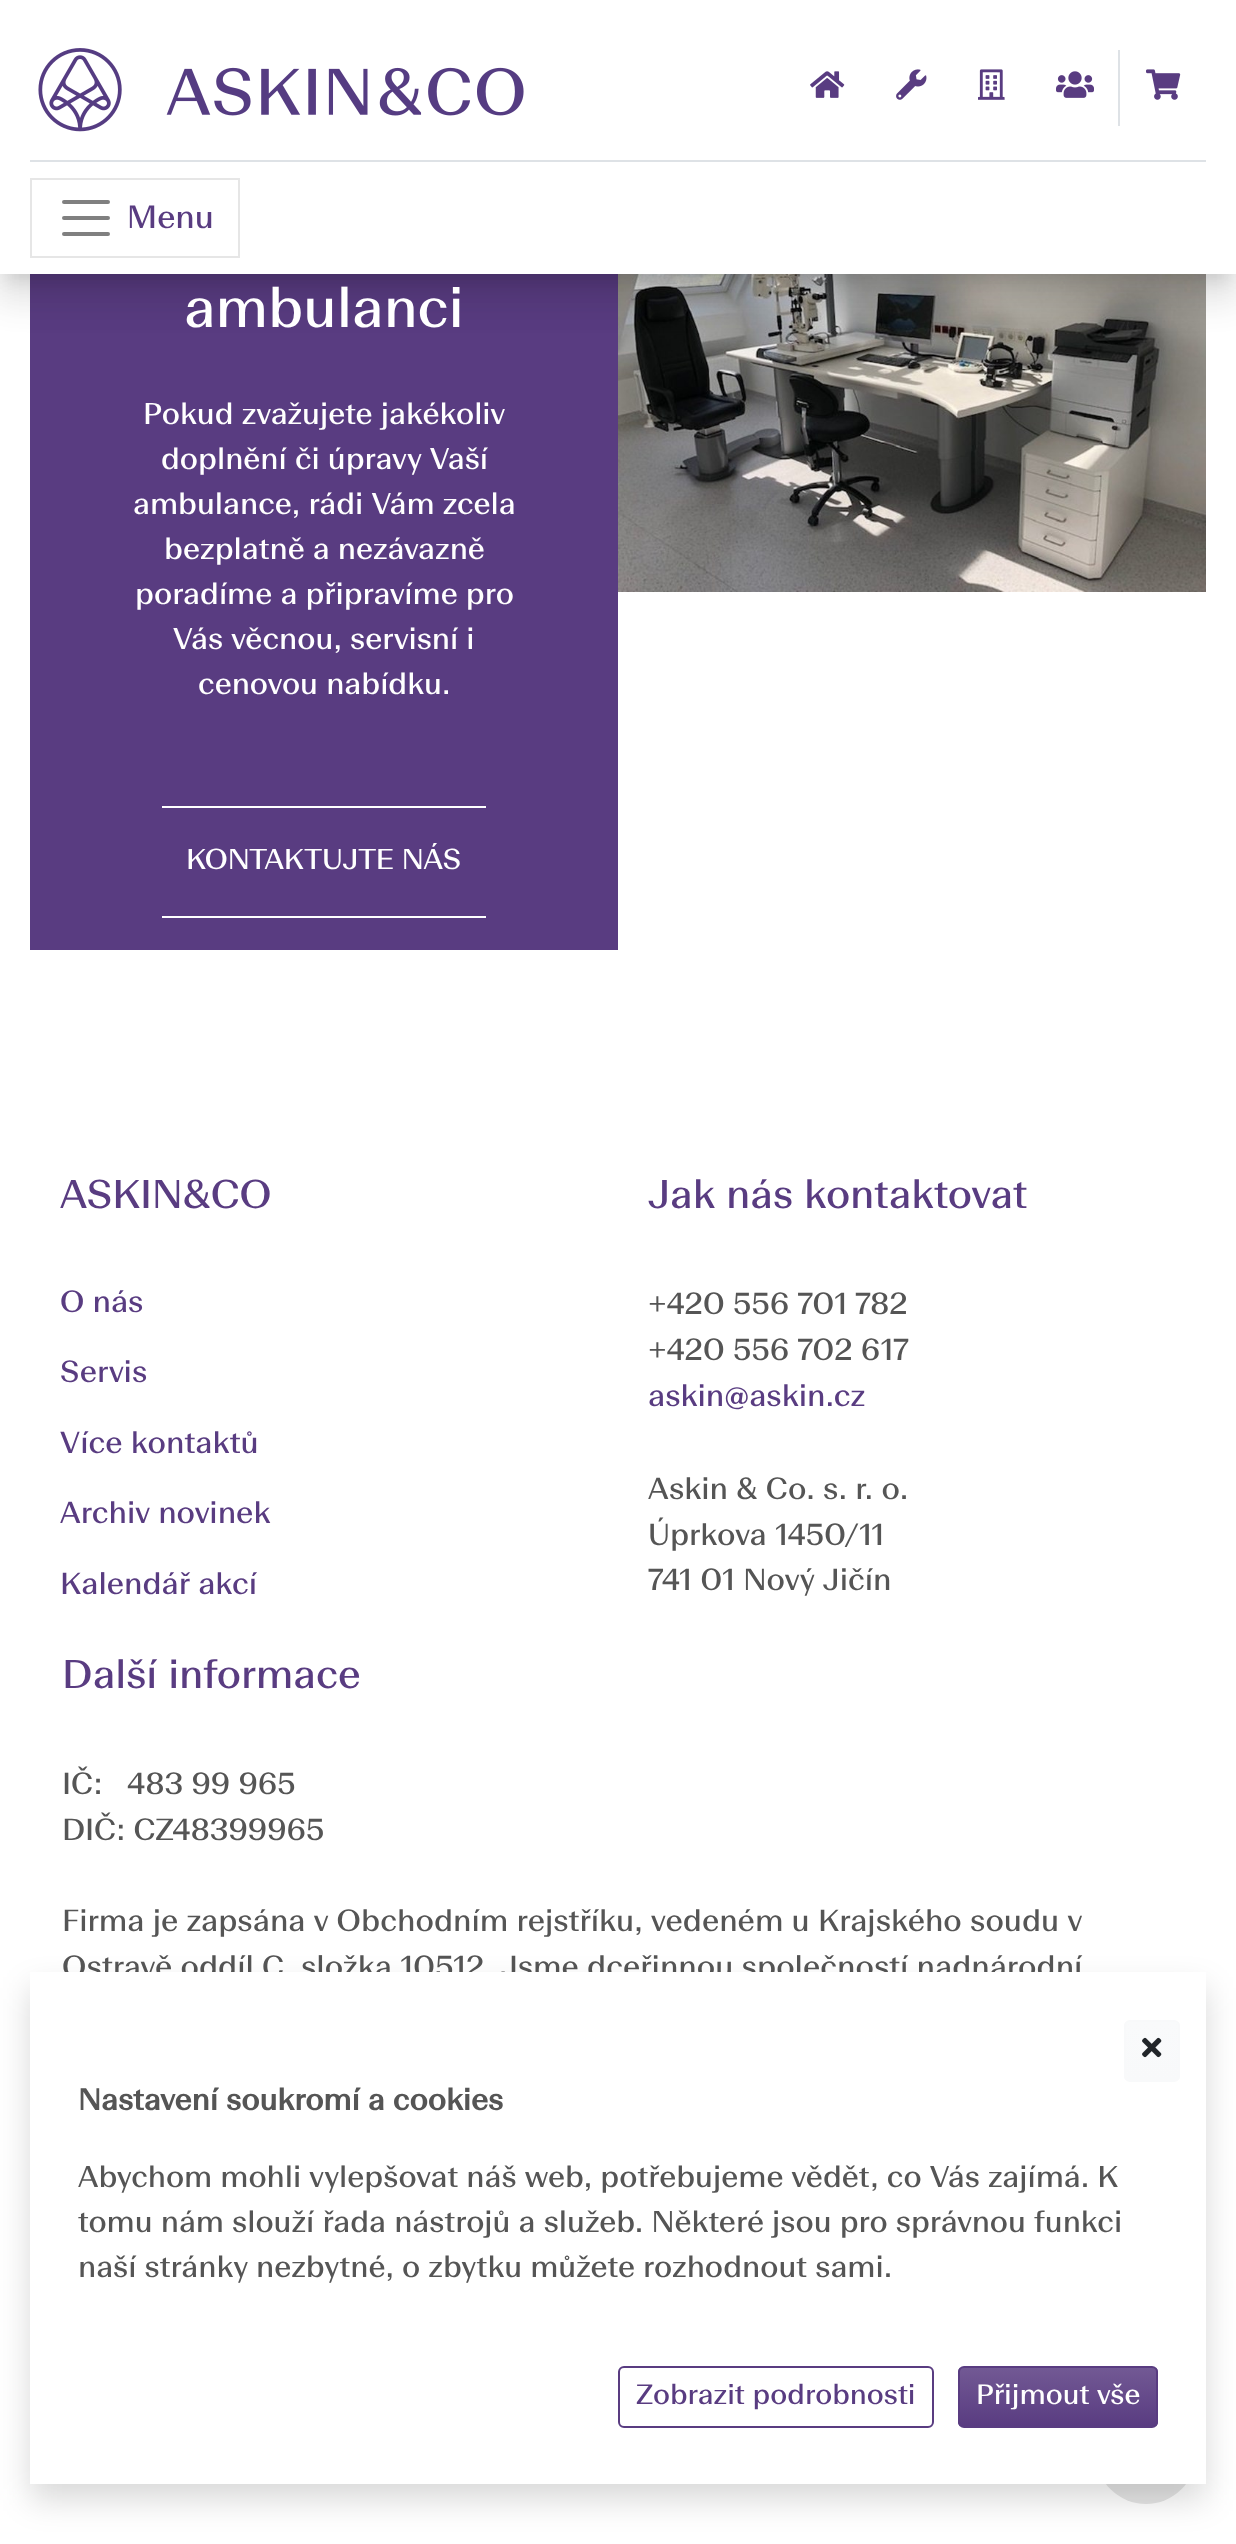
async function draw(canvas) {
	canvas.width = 1236;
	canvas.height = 2544;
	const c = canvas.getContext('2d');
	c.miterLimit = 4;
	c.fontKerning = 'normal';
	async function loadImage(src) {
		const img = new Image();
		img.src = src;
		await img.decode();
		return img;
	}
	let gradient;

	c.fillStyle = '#fff';
	c.fillRect(0, 0, 1236, 2544);
	c.fillStyle = '#593c81';
	c.fillRect(30, 274, 588, 676);
	c.drawImage(await loadImage('img7.png'), 618, 274, 588, 318);
	c.fillStyle = '#0000001a';
	c.filter = 'blur(8px)';
	c.beginPath();
	c.rect(8, 22, 1220, 258);
	c.fill();
	c.filter = 'none';
	c.fillStyle = '#0000000f';
	c.filter = 'blur(22px)';
	c.beginPath();
	c.rect(-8, 2, 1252, 290);
	c.fill();
	c.filter = 'none';
	c.fillStyle = '#00000012';
	c.filter = 'blur(17px)';
	c.beginPath();
	c.rect(-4, 20, 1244, 282);
	c.fill();
	c.filter = 'none';
	c.fillStyle = '#fff';
	c.fillRect(0, 0, 1236, 274);
	c.fillStyle = '#dee2e6';
	c.fillRect(30, 160, 1176, 2);
	c.drawImage(await loadImage('img1.png'), 38, 48, 486, 84);
	c.drawImage(await loadImage('img2.png'), 810, 71, 35, 27);
	c.drawImage(await loadImage('img3.png'), 896, 69, 31, 31);
	c.drawImage(await loadImage('img4.png'), 978, 69, 27, 31);
	c.drawImage(await loadImage('img5.png'), 1056, 71, 38, 27);
	c.fillRect(1118, 50, 2, 76);
	c.drawImage(await loadImage('img6.png'), 1146, 69, 35, 31);
	c.strokeStyle = '#e6e6e6';
	c.lineWidth = 2;
	c.strokeRect(31, 179, 208, 78);
	c.beginPath();
	c.moveTo(64, 202);
	c.lineTo(108, 202);
	c.moveTo(64, 218);
	c.lineTo(108, 218);
	c.moveTo(64, 234);
	c.lineTo(108, 234);
	c.strokeStyle = '#808080';
	c.lineWidth = 4;
	c.lineCap = 'round';
	c.stroke();
	c.font = '32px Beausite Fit';
	c.fillStyle = '#593c81';
	c.fillText('Menu', 127, 228);
	c.font = '56px Beausite Fit';
	c.fillStyle = '#fff';
	c.fillText('ambulanci', 184, 327);
	c.font = '30px Beausite Fit';
	for (const [text, x, y] of [
		['Pokud zvažujete jakékoliv', 143, 424],
		['doplnění či úpravy Vaší', 161, 469],
		['ambulance, rádi Vám zcela', 133, 514],
		['bezplatně a nezávazně', 164, 559],
		['poradíme a připravíme pro', 135, 604],
		['Vás věcnou, servisní i', 173, 649],
		['cenovou nabídku.', 198, 694],
	]) {
		c.fillText(text, x, y);
	}
	c.fillRect(162, 806, 324, 2);
	c.fillRect(162, 916, 324, 2);
	c.font = '28.75px Beausite Fit';
	c.fillText('KONTAKTUJTE NÁS', 186, 869);
	c.font = '40px Beausite Fit';
	c.fillStyle = '#593c81';
	c.fillText('ASKIN&CO', 60, 1208);
	c.font = '30.4px Beausite Fit';
	for (const [text, x, y] of [
		['O nás', 60, 1312],
		['Servis', 60, 1382],
		['Více kontaktů', 60, 1453],
		['Archiv novinek', 60, 1523],
		['Kalendář akcí', 60, 1594],
	]) {
		c.fillText(text, x, y);
	}
	c.font = '40px Beausite Fit';
	c.fillText('Jak nás kontaktovat', 648, 1208);
	c.font = '30.4px Beausite Fit';
	c.fillStyle = '#555';
	c.fillText('+420 556 701 782', 648, 1314);
	c.fillText('+420 556 702 617', 648, 1360);
	c.fillStyle = '#593c81';
	c.fillText('askin@askin.cz', 648, 1406);
	c.fillStyle = '#555';
	for (const [text, x, y] of [
		['Askin & Co. s. r. o.', 648, 1499],
		['Úprkova 1450/11', 648, 1545],
		['741 01 Nový Jičín', 648, 1590],
	]) {
		c.fillText(text, x, y);
	}
	c.font = '40px Beausite Fit';
	c.fillStyle = '#593c81';
	c.fillText('Další informace', 62, 1688);
	c.font = '30.4px Beausite Fit';
	c.fillStyle = '#555';
	for (const [text, x, y] of [
		['IČ:   483 99 965', 62, 1794],
		['DIČ: CZ48399965', 62, 1840],
		['Firma je zapsána v Obchodním rejstříku, vedeném u Krajského soudu v', 62, 1931],
		['Ostravě oddíl C, složka 10512', 62, 1977],
		['Jsme dceřinnou společností nadnárodní', 501, 1977],
	]) {
		c.fillText(text, x, y);
	}
	c.fillStyle = '#e6e6e6';
	c.beginPath();
	c.arc(1146, 2454, 50, 0, 2 * Math.PI);
	c.fill();
	c.fillStyle = '#00000026';
	c.filter = 'blur(16px)';
	c.beginPath();
	c.rect(30, 1988, 1176, 512);
	c.fill();
	c.filter = 'none';
	c.fillStyle = '#fff';
	c.fillRect(30, 1972, 1176, 512);
	c.save();
	c.beginPath();
	c.roundRect(1124, 2020, 56, 62, 6);
	c.clip();
	gradient = c.createLinearGradient(1152, 2022, 1152, 2080);
	gradient.addColorStop(0, '#f9fafb');
	gradient.addColorStop(1, '#f8f9fa');
	c.fillStyle = gradient;
	c.fillRect(1124, 2022, 56, 58);
	c.restore();
	c.beginPath();
	c.roundRect(1125, 2021, 54, 60, 5);
	c.strokeStyle = '#f8f9fa';
	c.lineWidth = 2;
	c.stroke();
	c.drawImage(await loadImage('img8.png'), 1142, 2037, 20, 21);
	c.font = 'bold 30px Beausite Fit';
	c.fillStyle = '#555';
	c.fillText('Nastavení soukromí a cookies', 78, 2110);
	c.font = '30px Beausite Fit';
	for (const [text, x, y] of [
		['Abychom mohli vylepšovat náš web, potřebujeme vědět, co Vás zajímá. K', 78, 2187],
		['tomu nám slouží řada nástrojů a služeb. Některé jsou pro správnou funkci', 78, 2232],
		['naší stránky nezbytné, o zbytku můžete rozhodnout sami.', 78, 2277],
	]) {
		c.fillText(text, x, y);
	}
	c.beginPath();
	c.roundRect(619, 2367, 314, 60, 5);
	c.strokeStyle = '#593c81';
	c.stroke();
	c.font = '28px Beausite Fit';
	c.fillStyle = '#593c81';
	c.fillText('Zobrazit podrobnosti', 636, 2404);
	c.save();
	c.beginPath();
	c.roundRect(958, 2366, 200, 62, 6);
	c.clip();
	gradient = c.createLinearGradient(1058, 2368, 1058, 2426);
	gradient.addColorStop(0, '#725994');
	gradient.addColorStop(1, '#593c81');
	c.fillStyle = gradient;
	c.fillRect(958, 2368, 200, 58);
	c.restore();
	c.beginPath();
	c.roundRect(959, 2367, 198, 60, 5);
	c.stroke();
	c.fillStyle = '#fff';
	c.fillText('Přijmout vše', 976, 2404);
}

draw(document.querySelector('canvas'));
